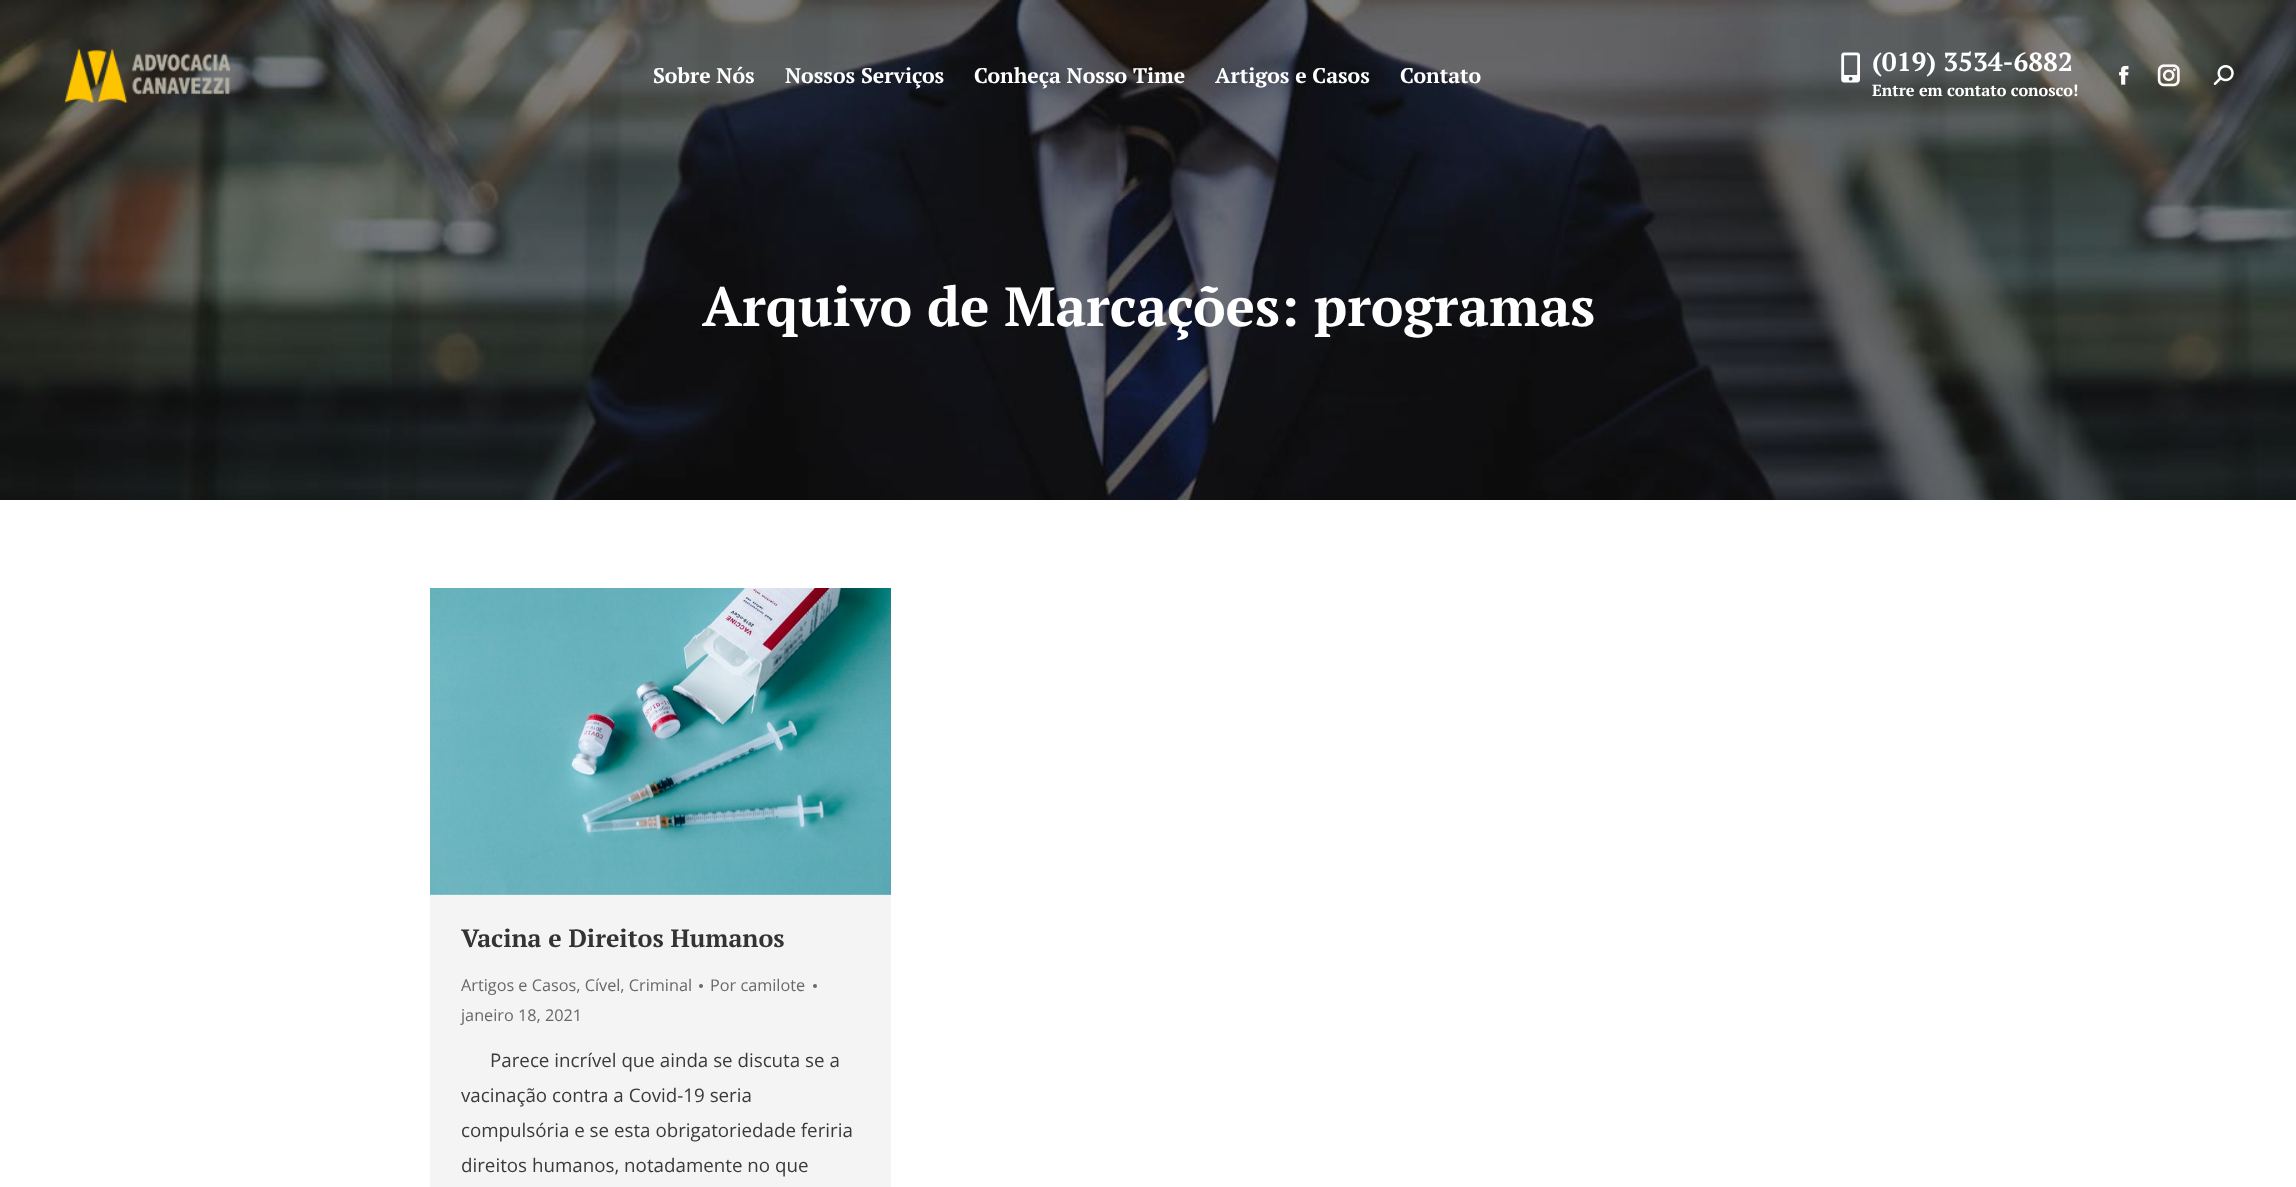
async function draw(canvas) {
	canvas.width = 2296;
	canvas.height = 1187;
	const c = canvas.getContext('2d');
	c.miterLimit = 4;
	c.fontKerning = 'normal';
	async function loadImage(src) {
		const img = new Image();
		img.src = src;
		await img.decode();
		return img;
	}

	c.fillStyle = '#fff';
	c.fillRect(0, 0, 2296, 1187);
	c.drawImage(await loadImage('img6.png'), 0, 0, 2296, 500);
	c.drawImage(await loadImage('img1.png'), 64, 48, 167, 55);
	c.font = 'bold 21.25px PT Serif';
	for (const [text, x, y] of [
		['Sobre Nós', 653, 83],
		['Nossos Serviços', 785, 83],
		['Conheça Nosso Time', 974, 83],
		['Artigos e Casos', 1215, 83],
		['Contato', 1400, 83],
	]) {
		c.fillText(text, x, y);
	}
	c.drawImage(await loadImage('img2.png'), 1841, 52, 19, 31);
	c.font = 'bold 26.25px PT Serif';
	c.fillText('(019) 3534-6882', 1872, 71);
	c.font = 'bold 16.25px PT Serif';
	c.fillText('Entre em contato conosco!', 1872, 96);
	c.drawImage(await loadImage('img3.png'), 2119, 65, 10, 20);
	c.drawImage(await loadImage('img4.png'), 2157, 64, 23, 23);
	c.drawImage(await loadImage('img5.png'), 2213, 65, 21, 20);
	c.font = 'bold 55px PT Serif';
	c.fillText('Arquivo de Marcações: programas', 702, 326);
	c.fillStyle = '#f4f4f4';
	c.fillRect(430, 894, 461, 293);
	c.drawImage(await loadImage('img7.png'), 430, 588, 461, 307);
	c.font = 'bold 25px PT Serif';
	c.fillStyle = '#333';
	c.fillText('Vacina e Direitos Humanos', 461, 947);
	c.font = '16.25px Open Sans';
	c.fillStyle = '#686868';
	c.fillText('Artigos e Casos, Cível, Criminal', 461, 991);
	c.beginPath();
	c.arc(701, 986, 2, 0, 2 * Math.PI);
	c.fill();
	c.fillText('Por camilote', 710, 991);
	c.beginPath();
	c.arc(815, 986, 2, 0, 2 * Math.PI);
	c.fill();
	c.fillText('janeiro 18, 2021', 461, 1021);
	c.font = '18.75px Open Sans';
	c.fillStyle = '#3a3a3a';
	for (const [text, x, y] of [
		['Parece incrível que ainda se discuta se a', 490, 1067],
		['vacinação contra a Covid-19 seria', 461, 1102],
		['compulsória e se esta obrigatoriedade feriria', 461, 1137],
		['direitos humanos, notadamente no que', 461, 1172],
	]) {
		c.fillText(text, x, y);
	}
}

draw(document.querySelector('canvas'));
